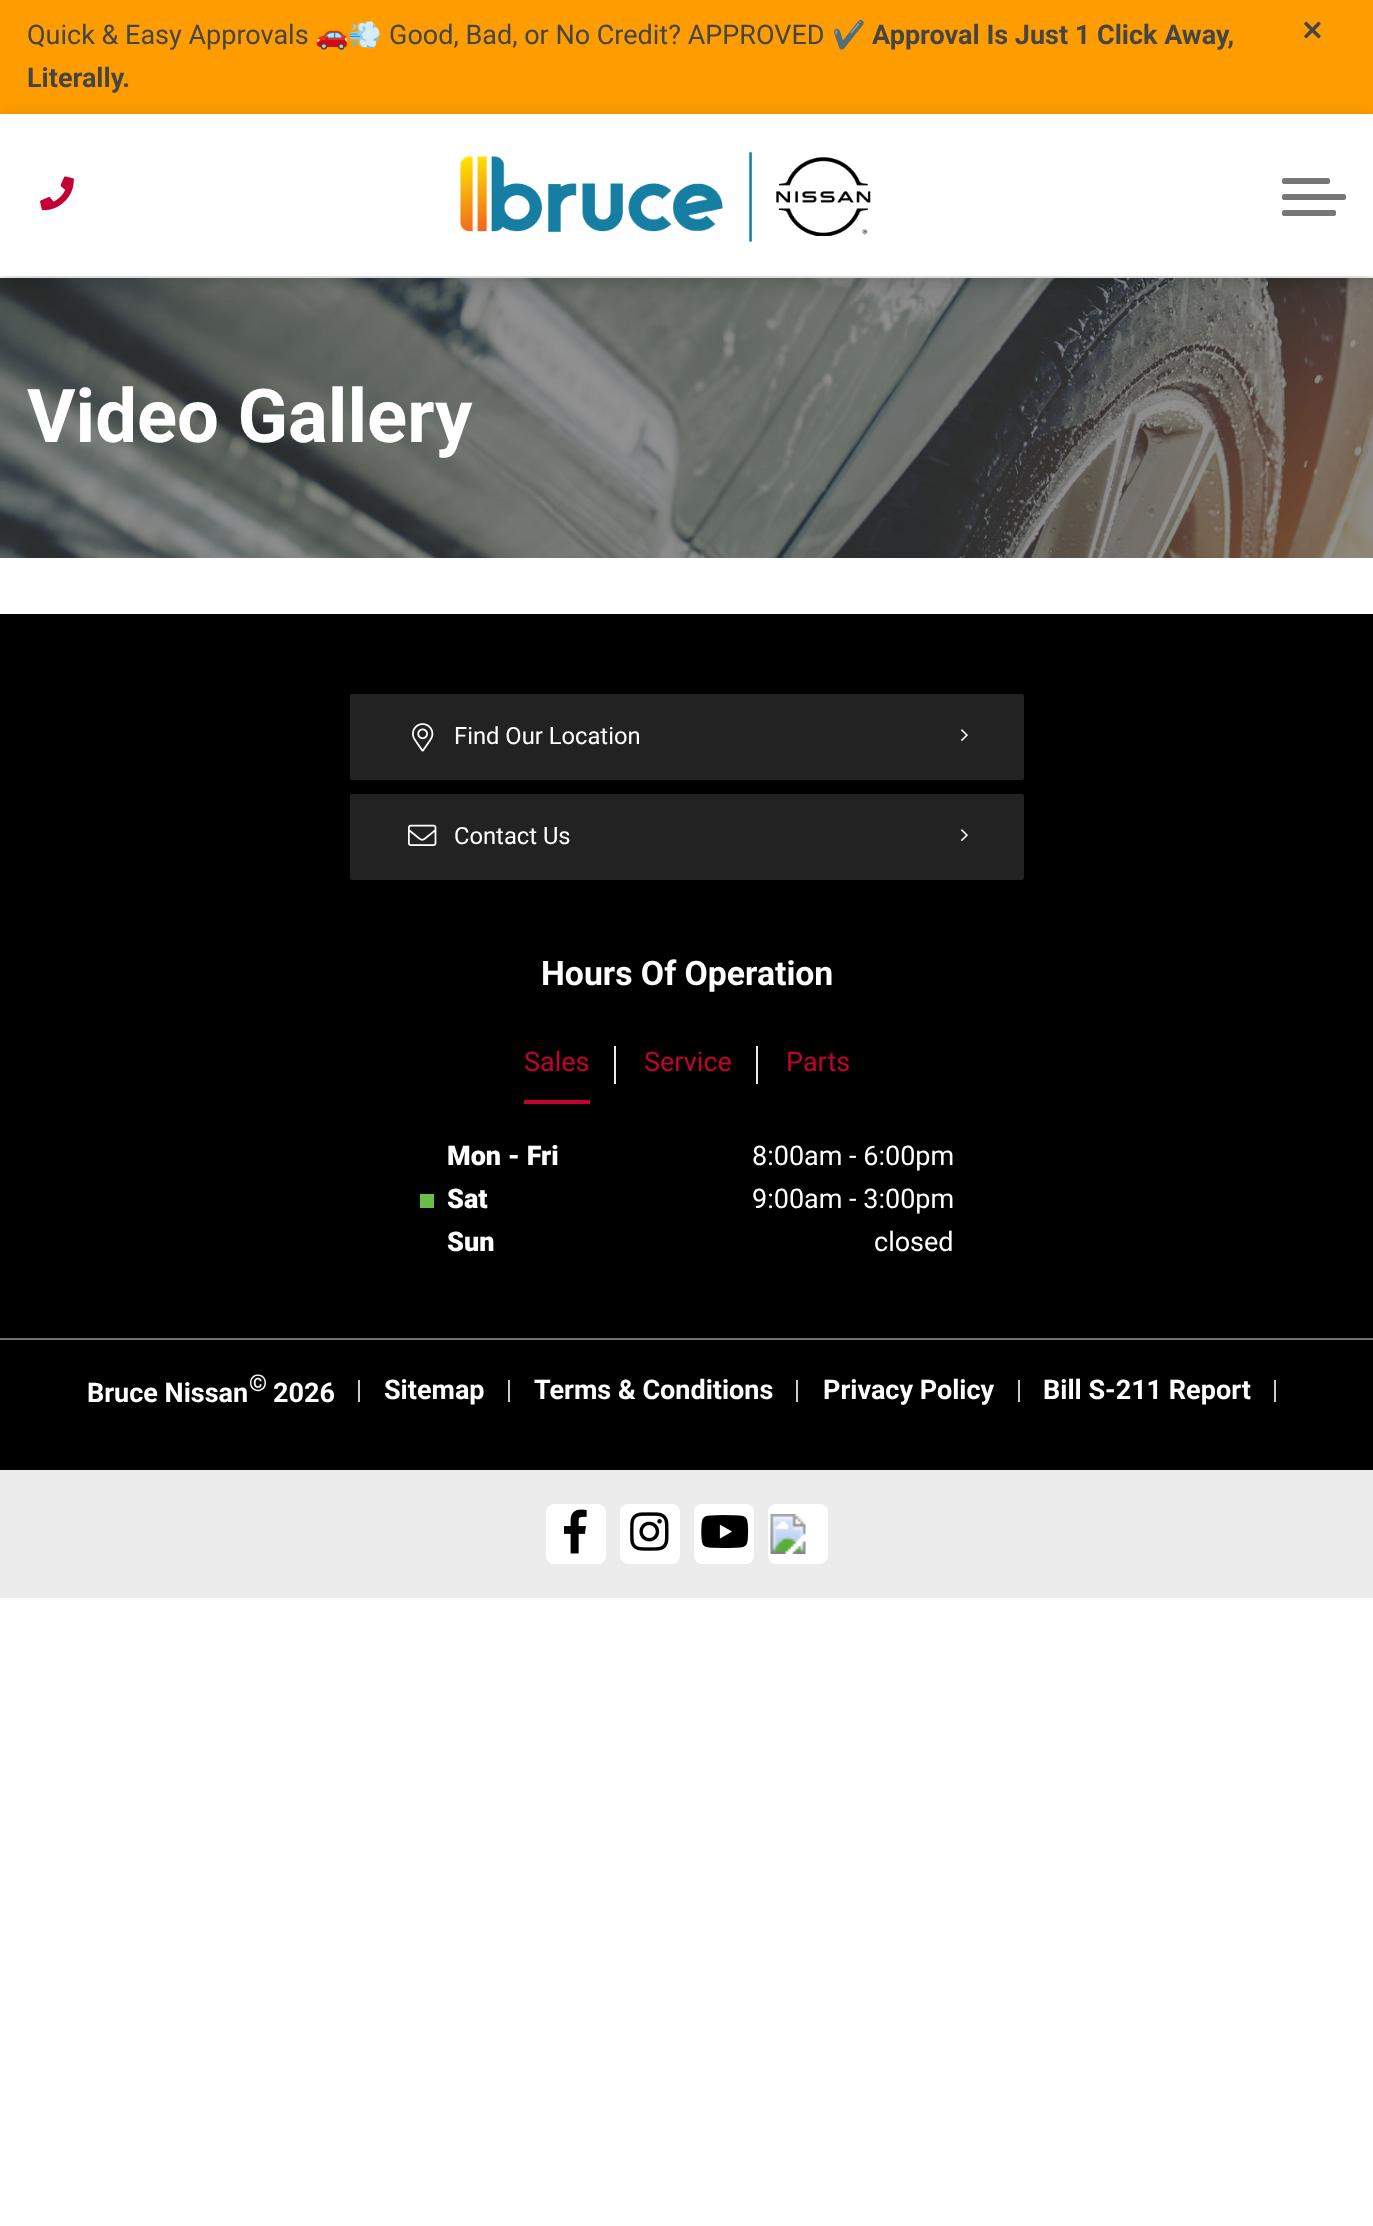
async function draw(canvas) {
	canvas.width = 1373;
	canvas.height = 2226;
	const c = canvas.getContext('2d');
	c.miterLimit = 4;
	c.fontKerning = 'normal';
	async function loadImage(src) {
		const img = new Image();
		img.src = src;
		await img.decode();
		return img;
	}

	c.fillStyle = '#fff';
	c.fillRect(0, 0, 1373, 2226);
	c.fillStyle = '#ff9d00';
	c.fillRect(0, 0, 1373, 114);
	c.font = '27px Roboto';
	c.fillStyle = '#454545';
	c.fillText('Quick & Easy Approvals', 27, 44);
	c.font = '27px Noto Color Emoji';
	c.fillText('🚗💨', 315, 44);
	c.font = '27px Roboto';
	c.fillText('Good, Bad, or No Credit? APPROVED', 389, 44);
	c.font = '27px Noto Color Emoji';
	c.fillText('✔️', 832, 44);
	c.font = 'bold 27px Roboto';
	c.fillText('Approval Is Just 1 Click Away,', 872, 44);
	c.fillText('Literally.', 27, 87);
	c.drawImage(await loadImage('img1.png'), 1304, 21, 17, 18);
	c.drawImage(await loadImage('img4.png'), 0, 278, 1373, 280);
	c.fillStyle = '#00000033';
	c.filter = 'blur(10px)';
	c.beginPath();
	c.rect(0, 120, 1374, 162);
	c.fill();
	c.filter = 'none';
	c.fillStyle = '#fff';
	c.fillRect(0, 114, 1373, 162);
	c.drawImage(await loadImage('img2.png'), 40, 176, 34, 35);
	c.drawImage(await loadImage('img3.png'), 460, 151, 411, 91);
	c.fillStyle = '#777';
	c.beginPath();
	c.roundRect(1282, 194, 64, 6, 2);
	c.fill();
	c.beginPath();
	c.roundRect(1282, 178, 48, 6, 2);
	c.fill();
	c.beginPath();
	c.roundRect(1282, 210, 54, 6, 2);
	c.fill();
	c.font = 'bold 74.25px Roboto';
	c.fillStyle = '#fff';
	c.fillText('Video Gallery', 27, 442);
	c.fillStyle = '#000';
	c.fillRect(0, 614, 1373, 724);
	c.fillStyle = '#222';
	c.beginPath();
	c.roundRect(350, 694, 674, 86, 2);
	c.fill();
	c.drawImage(await loadImage('img5.png'), 412, 723, 22, 29);
	c.font = '23.75px Roboto';
	c.fillStyle = '#fff';
	c.fillText('Find Our Location', 454, 744);
	c.drawImage(await loadImage('img6.png'), 961, 729, 7, 12);
	c.fillStyle = '#222';
	c.beginPath();
	c.roundRect(350, 794, 674, 86, 2);
	c.fill();
	c.drawImage(await loadImage('img7.png'), 408, 824, 29, 22);
	c.fillStyle = '#fff';
	c.fillText('Contact Us', 454, 844);
	c.drawImage(await loadImage('img6.png'), 961, 829, 7, 12);
	c.font = 'bold 33.75px Roboto';
	c.fillText('Hours Of Operation', 541, 985);
	c.fillStyle = '#c3002f';
	c.fillRect(524, 1100, 66, 4);
	c.font = '27px Roboto';
	c.fillText('Sales', 524, 1071);
	c.fillStyle = '#ececec';
	c.fillRect(614, 1046, 2, 38);
	c.fillStyle = '#c3002f';
	c.fillText('Service', 644, 1071);
	c.fillStyle = '#ececec';
	c.fillRect(756, 1046, 2, 38);
	c.fillStyle = '#c3002f';
	c.fillText('Parts', 786, 1071);
	c.font = '900 27px Roboto';
	c.fillStyle = '#fff';
	c.fillText('Mon - Fri', 447, 1165);
	c.font = '27px Roboto';
	c.fillText('8:00am - 6:00pm', 752, 1165);
	c.fillStyle = '#6bbf49';
	c.fillRect(420, 1194, 14, 14);
	c.font = '900 27px Roboto';
	c.fillStyle = '#fff';
	c.fillText('Sat', 447, 1208);
	c.font = '27px Roboto';
	c.fillText('9:00am - 3:00pm', 752, 1208);
	c.font = '900 27px Roboto';
	c.fillText('Sun', 447, 1251);
	c.font = '27px Roboto';
	c.fillText('closed', 874, 1251);
	c.fillStyle = '#000';
	c.fillRect(0, 1340, 1373, 130);
	c.fillStyle = '#707070';
	c.fillRect(0, 1338, 1373, 2);
	c.font = 'bold 27px Roboto';
	c.fillStyle = '#fff';
	c.fillText('Bruce Nissan', 87, 1402);
	c.font = 'bold 23px Roboto';
	c.fillText('©', 249, 1391);
	c.font = 'bold 27px Roboto';
	c.fillText('2026', 273, 1402);
	c.fillStyle = '#ccc';
	c.fillRect(358, 1380, 2, 22);
	c.fillStyle = '#fff';
	c.fillText('Sitemap', 384, 1399);
	c.fillStyle = '#ccc';
	c.fillRect(508, 1380, 2, 22);
	c.fillStyle = '#fff';
	c.fillText('Terms & Conditions', 534, 1399);
	c.fillStyle = '#ccc';
	c.fillRect(796, 1380, 2, 22);
	c.fillStyle = '#fff';
	c.fillText('Privacy Policy', 823, 1399);
	c.fillStyle = '#ccc';
	c.fillRect(1018, 1380, 2, 22);
	c.fillStyle = '#fff';
	c.fillText('Bill S-211 Report', 1043, 1399);
	c.fillStyle = '#ccc';
	c.fillRect(1274, 1380, 2, 22);
	c.fillStyle = '#ececec';
	c.fillRect(0, 1470, 1373, 128);
	c.fillStyle = '#fff';
	c.beginPath();
	c.roundRect(546, 1504, 60, 60, 8);
	c.fill();
	c.drawImage(await loadImage('img8.png'), 564, 1509, 23, 45);
	c.beginPath();
	c.roundRect(620, 1504, 60, 60, 8);
	c.fill();
	c.drawImage(await loadImage('img9.png'), 630, 1512, 39, 39);
	c.beginPath();
	c.roundRect(694, 1504, 60, 60, 8);
	c.fill();
	c.drawImage(await loadImage('img10.png'), 701, 1515, 48, 33);
	c.beginPath();
	c.roundRect(768, 1504, 60, 60, 8);
	c.fill();
	c.drawImage(await loadImage('img11.png'), 770, 1514, 36, 40);
}

draw(document.querySelector('canvas'));
